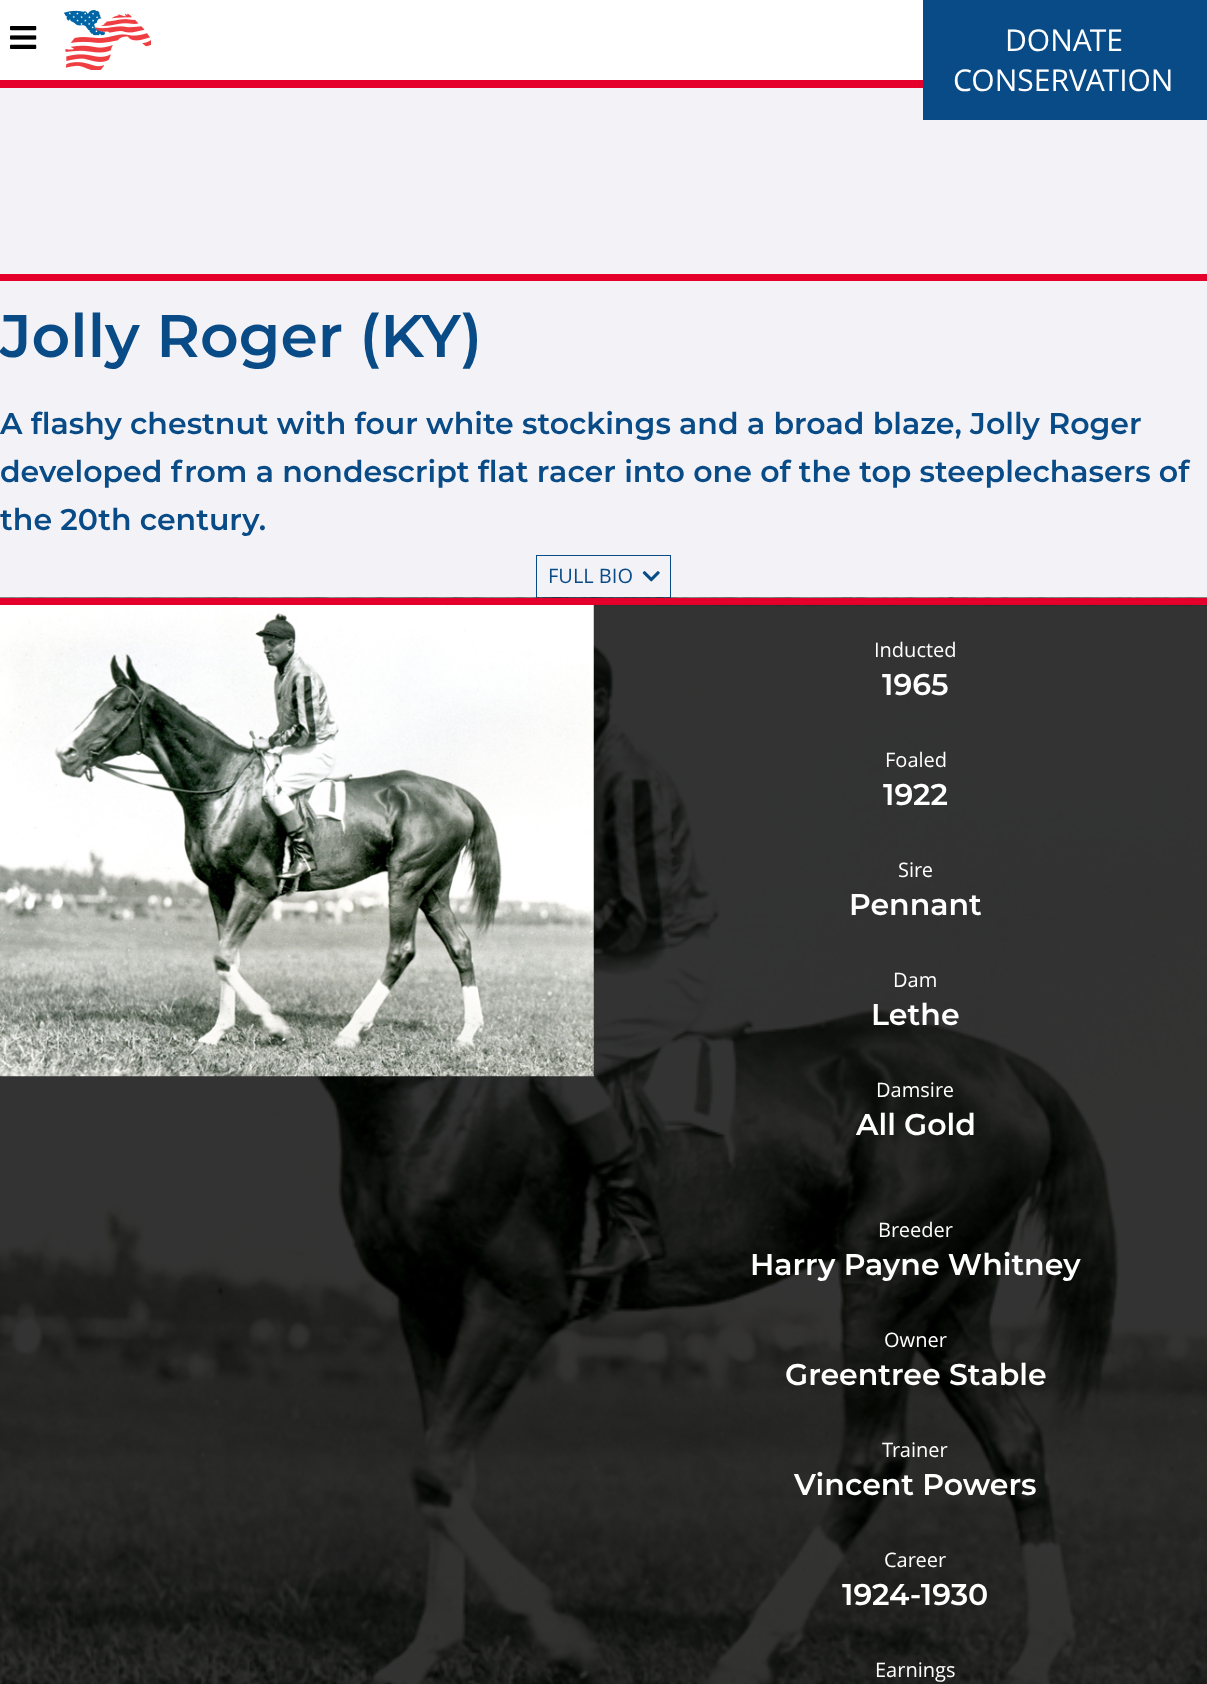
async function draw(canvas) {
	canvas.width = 1207;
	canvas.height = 1684;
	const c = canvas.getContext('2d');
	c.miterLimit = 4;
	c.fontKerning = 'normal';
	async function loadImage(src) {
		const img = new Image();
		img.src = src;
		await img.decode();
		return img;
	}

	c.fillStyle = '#f3f3f7';
	c.fillRect(0, 0, 1207, 1684);
	c.fillStyle = '#e4002b';
	c.fillRect(0, 80, 923, 8);
	c.fillStyle = '#fff';
	c.fillRect(0, 0, 923, 80);
	c.drawImage(await loadImage('img1.png'), 10, 26, 27, 23);
	c.drawImage(await loadImage('img2.png'), 64, 10, 87, 60);
	c.fillStyle = '#094b87';
	c.fillRect(923, 0, 284, 120);
	c.font = '30px Open Sans';
	c.fillStyle = '#fff';
	c.fillText('DONATE', 1005, 51);
	c.fillText('CONSERVATION', 953, 91);
	c.fillStyle = '#e4002b';
	c.fillRect(0, 274, 1207, 7);
	c.font = '600 60px Montserrat';
	c.fillStyle = '#094b87';
	c.fillText('Jolly Roger (KY)', 0, 357);
	c.font = '600 30px Montserrat';
	for (const [text, x, y] of [
		['A flashy chestnut with four white stockings and a broad blaze, Jolly Roger', 0, 434],
		['developed from a nondescript flat racer into one of the top steeplechasers of', 0, 482],
		['the 20th century.', 0, 530],
	]) {
		c.fillText(text, x, y);
	}
	c.strokeStyle = '#094b87';
	c.strokeRect(536.5, 555.5, 134, 42);
	c.font = '20px Open Sans';
	c.fillText('FULL BIO', 548, 583);
	c.drawImage(await loadImage('img3.png'), 642, 571, 18, 11);
	c.drawImage(await loadImage('img4.png'), 0, 597, 1207, 1087);
	c.fillStyle = '#e4002b';
	c.fillRect(0, 598, 1207, 7);
	c.drawImage(await loadImage('img5.png'), 0, 605, 594, 472);
	c.fillStyle = '#fff';
	c.fillText('Inducted', 874, 657);
	c.font = '600 30px Montserrat';
	c.fillText('1965', 882, 695);
	c.font = '20px Open Sans';
	c.fillText('Foaled', 885, 767);
	c.font = '600 30px Montserrat';
	c.fillText('1922', 883, 805);
	c.font = '20px Open Sans';
	c.fillText('Sire', 898, 877);
	c.font = '600 30px Montserrat';
	c.fillText('Pennant', 849, 915);
	c.font = '20px Open Sans';
	c.fillText('Dam', 893, 987);
	c.font = '600 30px Montserrat';
	c.fillText('Lethe', 871, 1025);
	c.font = '20px Open Sans';
	c.fillText('Damsire', 876, 1097);
	c.font = '600 30px Montserrat';
	c.fillText('All Gold', 856, 1135);
	c.font = '20px Open Sans';
	c.fillText('Breeder', 878, 1237);
	c.font = '600 30px Montserrat';
	c.fillText('Harry Payne Whitney', 750, 1275);
	c.font = '20px Open Sans';
	c.fillText('Owner', 884, 1347);
	c.font = '600 30px Montserrat';
	c.fillText('Greentree Stable', 785, 1385);
	c.font = '20px Open Sans';
	c.fillText('Trainer', 882, 1457);
	c.font = '600 30px Montserrat';
	c.fillText('Vincent Powers', 794, 1495);
	c.font = '20px Open Sans';
	c.fillText('Career', 884, 1567);
	c.font = '600 30px Montserrat';
	c.fillText('1924-1930', 842, 1605);
	c.font = '20px Open Sans';
	c.fillText('Earnings', 875, 1677);
}

draw(document.querySelector('canvas'));
